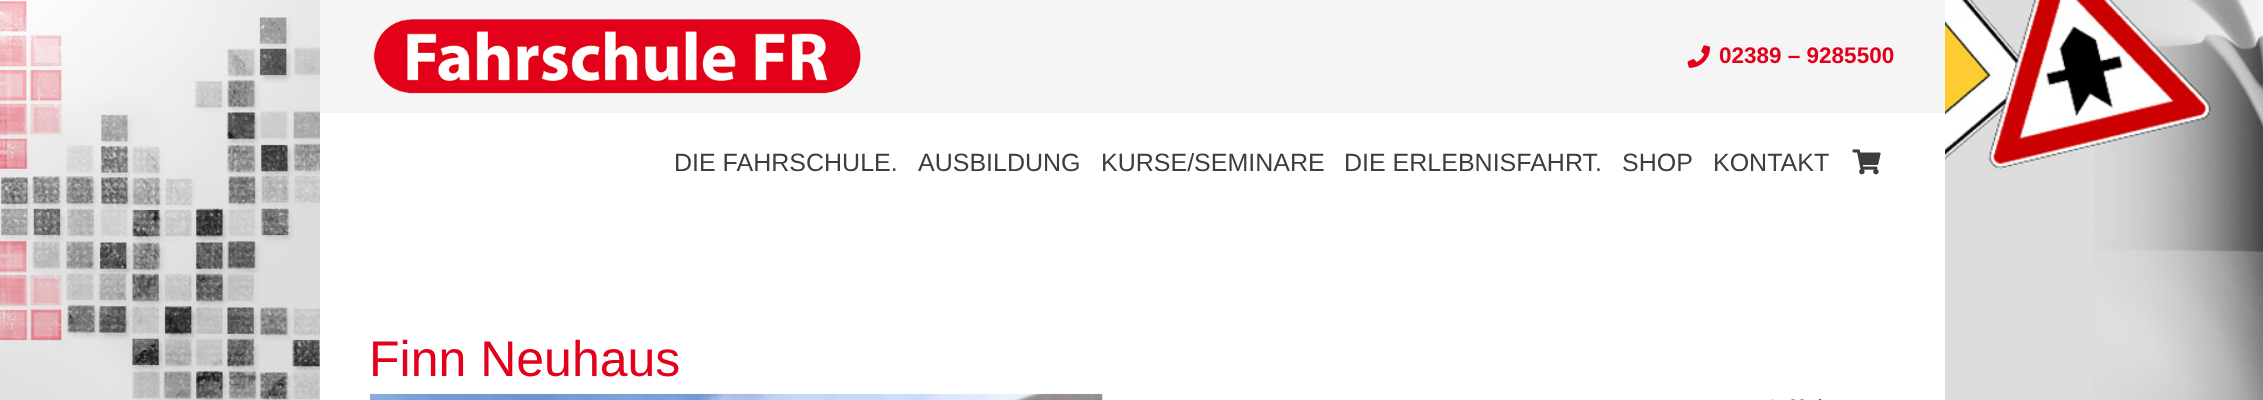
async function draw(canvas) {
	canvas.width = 2263;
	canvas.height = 400;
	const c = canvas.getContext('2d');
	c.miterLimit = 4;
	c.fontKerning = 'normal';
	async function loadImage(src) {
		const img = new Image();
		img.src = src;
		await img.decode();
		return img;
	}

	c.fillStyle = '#fff';
	c.fillRect(0, 0, 2263, 400);
	c.drawImage(await loadImage('img1.png'), 0, 0, 2263, 400);
	c.fillRect(320, 113, 1625, 287);
	c.fillStyle = '#f5f5f5';
	c.fillRect(320, 0, 1625, 113);
	c.drawImage(await loadImage('img2.png'), 373, 19, 488, 75);
	c.drawImage(await loadImage('img3.png'), 1687, 45, 23, 23);
	c.font = 'bold 22.5px Liberation Sans';
	c.fillStyle = '#e2001a';
	c.fillText('02389 – 9285500', 1719, 63);
	c.font = '25px Liberation Sans';
	c.fillStyle = '#3b3d40';
	for (const [text, x, y] of [
		['DIE FAHRSCHULE.', 674, 171],
		['AUSBILDUNG', 918, 171],
		['KURSE/SEMINARE', 1101, 171],
		['DIE ERLEBNISFAHRT.', 1344, 171],
		['SHOP', 1622, 171],
		['KONTAKT', 1713, 171],
	]) {
		c.fillText(text, x, y);
	}
	c.drawImage(await loadImage('img4.png'), 1852, 149, 29, 26);
	c.font = '50px Liberation Sans';
	c.fillStyle = '#e2001a';
	c.fillText('Finn Neuhaus', 369, 376);
	c.drawImage(await loadImage('img5.png'), 370, 393, 733, 7);
	c.drawImage(await loadImage('img6.png'), 1771, 399, 4, 1);
	c.drawImage(await loadImage('img7.png'), 1791, 399, 13, 1);
	c.drawImage(await loadImage('img8.png'), 1818, 399, 3, 1);
}

draw(document.querySelector('canvas'));
